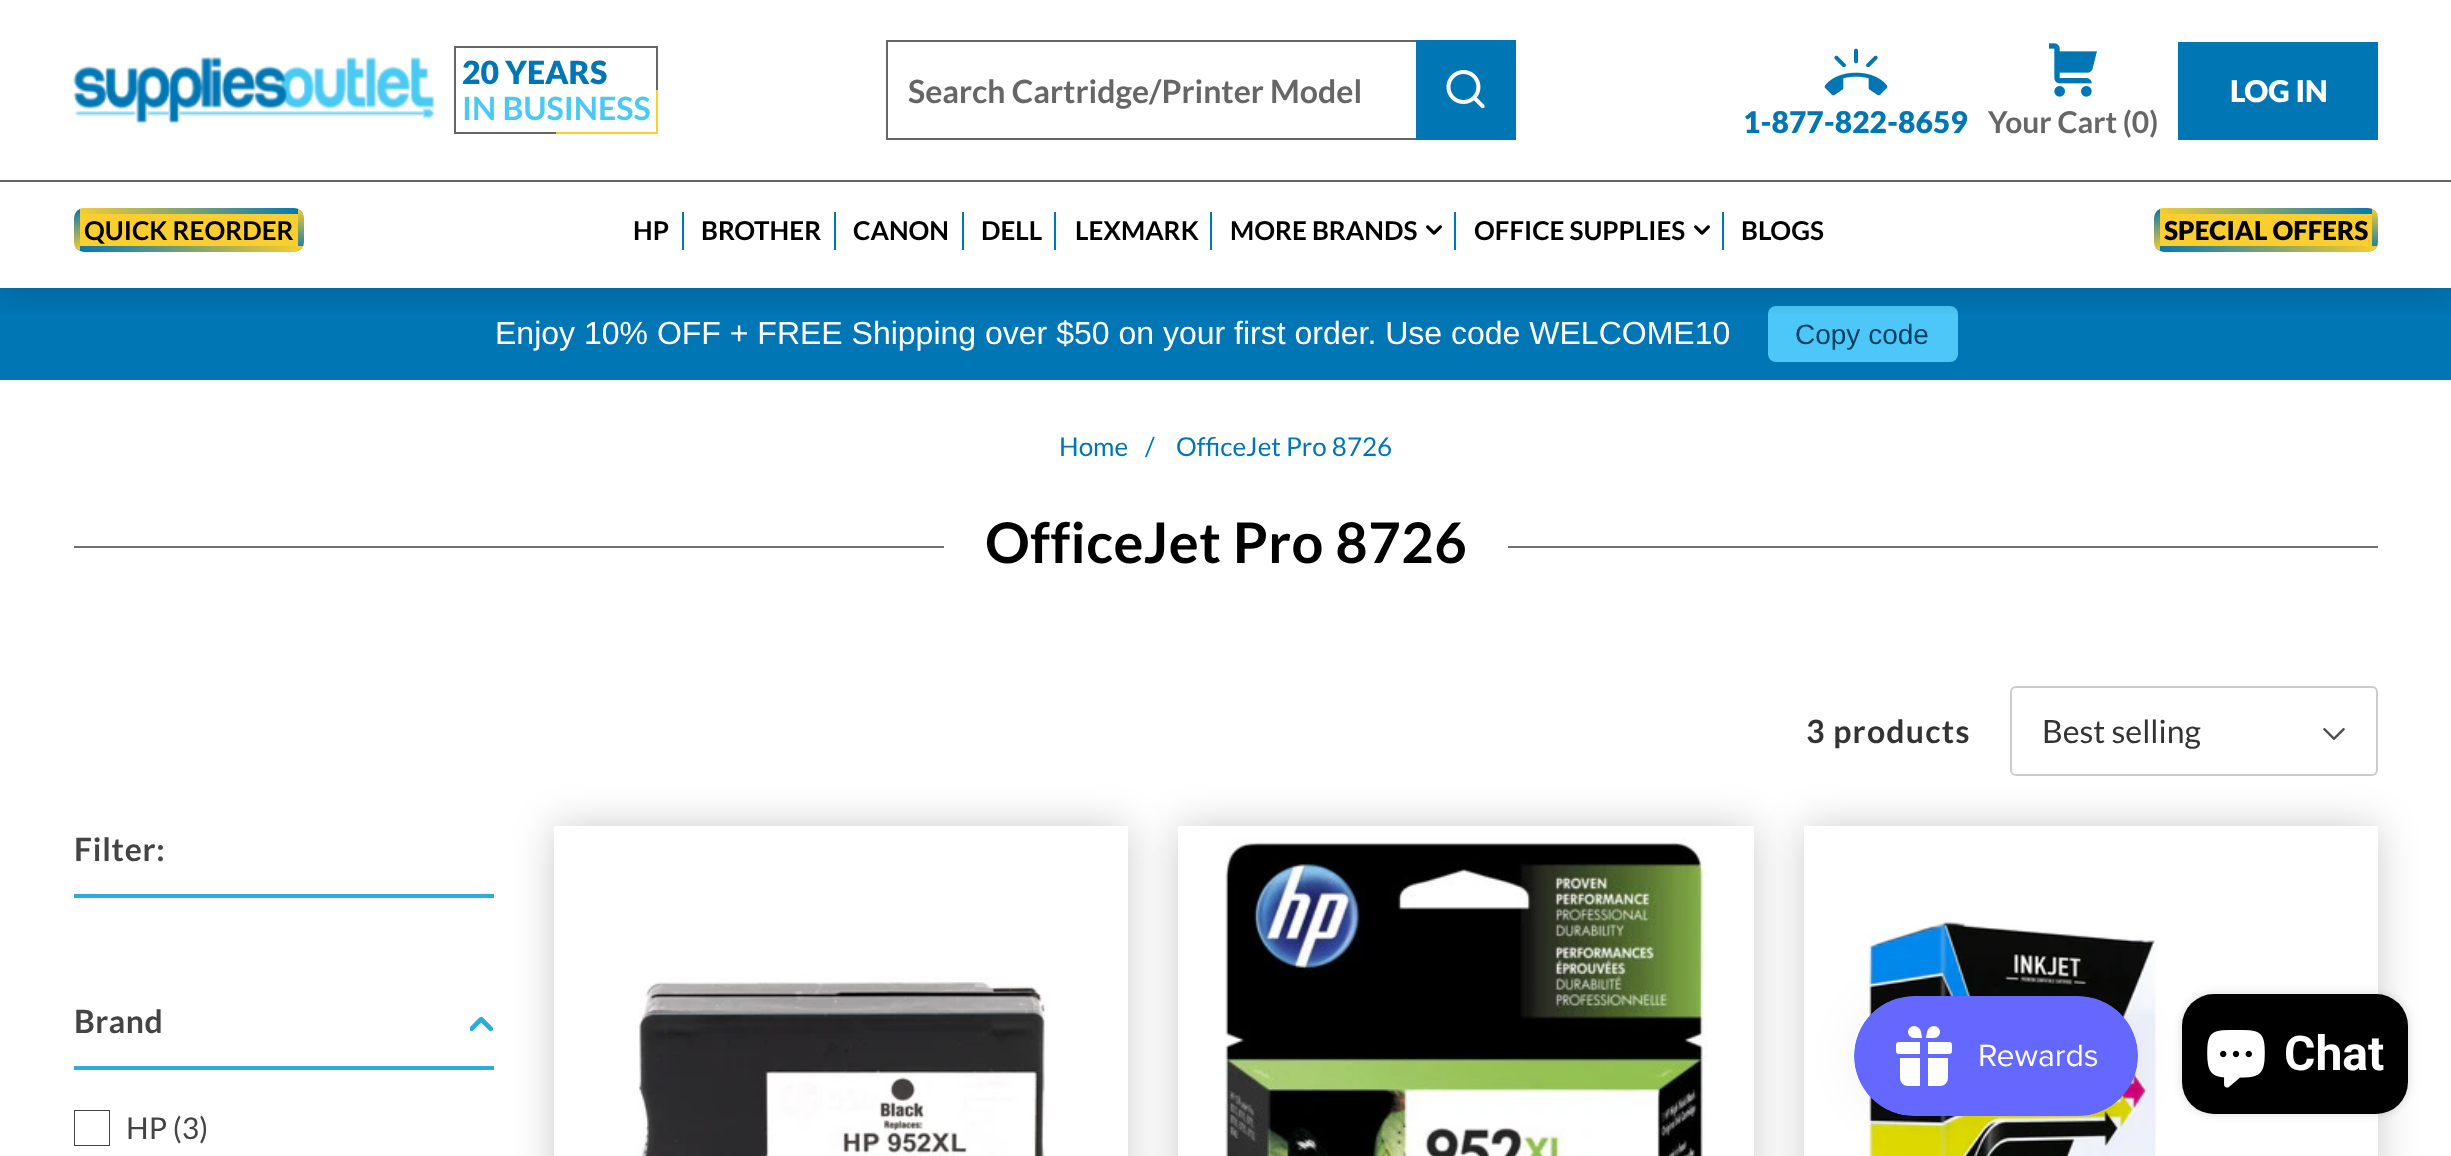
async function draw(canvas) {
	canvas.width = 2451;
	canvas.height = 1156;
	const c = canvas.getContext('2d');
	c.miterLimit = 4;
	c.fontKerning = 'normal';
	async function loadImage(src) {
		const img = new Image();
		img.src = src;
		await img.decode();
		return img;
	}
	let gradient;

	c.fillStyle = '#fff';
	c.fillRect(0, 0, 2451, 1156);
	c.fillStyle = '#0076b4';
	c.fillRect(0, 288, 2451, 92);
	c.fillStyle = '#4dc7f8';
	c.beginPath();
	c.roundRect(1768, 306, 190, 56, 8);
	c.fill();
	c.save();
	c.beginPath();
	c.rect(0, 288, 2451, 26);
	c.clip();
	c.fillStyle = '#00000033';
	c.filter = 'blur(20px)';
	c.beginPath();
	c.rect(0, 0, 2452, 288);
	c.fill();
	c.filter = 'none';
	c.restore();
	c.drawImage(await loadImage('img1.png'), 73, 57, 361, 67);
	c.drawImage(await loadImage('img2.png'), 454, 46, 204, 88);
	c.font = '900 32px Lato';
	c.fillStyle = '#0077b4';
	c.fillText('20 YEARS', 462, 84);
	c.font = 'bold 32px Lato';
	c.fillStyle = '#4ac9f2';
	c.fillText('IN BUSINESS', 462, 120);
	for (const [x, y, w, h, color] of [
		[886, 40, 530, 2, '#666'],
		[886, 138, 530, 2, '#666'],
		[886, 40, 2, 100, '#666'],
	]) {
		c.fillStyle = color;
		c.fillRect(x, y, w, h);
	}
	c.fillText('Search Cartridge/Printer Model', 908, 103);
	c.fillStyle = '#0077b4';
	c.fillRect(1416, 40, 100, 100);
	c.drawImage(await loadImage('img3.png'), 1446, 70, 39, 39);
	c.fillRect(2178, 42, 200, 98);
	c.font = '900 30px Lato';
	c.fillStyle = '#fff';
	c.fillText('LOG IN', 2230, 102);
	c.drawImage(await loadImage('img4.png'), 1824, 48, 64, 48);
	c.fillStyle = '#0077b4';
	c.fillText('1-877-822-8659', 1743, 133);
	c.drawImage(await loadImage('img5.png'), 2049, 43, 48, 54);
	c.font = 'bold 30px Lato';
	c.fillStyle = '#666';
	c.fillText('Your Cart (0)', 1988, 133);
	c.fillRect(0, 180, 2451, 2);
	c.fillStyle = '#face2f';
	c.beginPath();
	c.roundRect(74, 208, 230, 44, 10);
	c.fill();
	c.save();
	c.beginPath();
	c.roundRect(74, 208, 230, 44, 10);
	c.clip();
	gradient = c.createLinearGradient(74, 211, 304, 211);
	gradient.addColorStop(0, '#face2f');
	gradient.addColorStop(1, '#0077b4');
	c.fillStyle = gradient;
	c.fillRect(74, 208, 230, 6);
	gradient = c.createLinearGradient(301, 208, 301, 252);
	gradient.addColorStop(0, '#face2f');
	gradient.addColorStop(1, '#0077b4');
	c.fillStyle = gradient;
	c.fillRect(298, 208, 6, 44);
	gradient = c.createLinearGradient(304, 249, 74, 249);
	gradient.addColorStop(0, '#face2f');
	gradient.addColorStop(1, '#0077b4');
	c.fillStyle = gradient;
	c.fillRect(74, 246, 230, 6);
	gradient = c.createLinearGradient(77, 252, 77, 208);
	gradient.addColorStop(0, '#face2f');
	gradient.addColorStop(1, '#0077b4');
	c.fillStyle = gradient;
	c.fillRect(74, 208, 6, 44);
	c.restore();
	c.font = 'bold 26px Lato';
	c.fillStyle = '#000';
	c.fillText('QUICK REORDER', 84, 240);
	c.fillText('HP', 633, 240);
	c.fillStyle = '#0077b4';
	c.fillRect(682, 212, 2, 38);
	c.fillStyle = '#000';
	c.fillText('BROTHER', 701, 240);
	c.fillStyle = '#0077b4';
	c.fillRect(834, 212, 2, 38);
	c.fillStyle = '#000';
	c.fillText('CANON', 853, 240);
	c.fillStyle = '#0077b4';
	c.fillRect(962, 212, 2, 38);
	c.fillStyle = '#000';
	c.fillText('DELL', 981, 240);
	c.fillStyle = '#0077b4';
	c.fillRect(1054, 212, 2, 38);
	c.fillStyle = '#000';
	c.fillText('LEXMARK', 1075, 240);
	c.fillStyle = '#0077b4';
	c.fillRect(1210, 212, 2, 38);
	c.fillStyle = '#000';
	c.fillText('MORE BRANDS', 1230, 240);
	c.drawImage(await loadImage('img6.png'), 1426, 225, 16, 10);
	c.fillStyle = '#0077b4';
	c.fillRect(1454, 212, 2, 38);
	c.fillStyle = '#000';
	c.fillText('OFFICE SUPPLIES', 1474, 240);
	c.drawImage(await loadImage('img6.png'), 1694, 225, 16, 10);
	c.fillStyle = '#0077b4';
	c.fillRect(1722, 212, 2, 38);
	c.fillStyle = '#000';
	c.fillText('BLOGS', 1741, 240);
	c.fillStyle = '#face2f';
	c.beginPath();
	c.roundRect(2154, 208, 224, 44, 10);
	c.fill();
	c.save();
	c.beginPath();
	c.roundRect(2154, 208, 224, 44, 10);
	c.clip();
	gradient = c.createLinearGradient(2154, 211, 2378, 211);
	gradient.addColorStop(0, '#face2f');
	gradient.addColorStop(1, '#0077b4');
	c.fillStyle = gradient;
	c.fillRect(2154, 208, 224, 6);
	gradient = c.createLinearGradient(2375, 208, 2375, 252);
	gradient.addColorStop(0, '#face2f');
	gradient.addColorStop(1, '#0077b4');
	c.fillStyle = gradient;
	c.fillRect(2372, 208, 6, 44);
	gradient = c.createLinearGradient(2378, 249, 2154, 249);
	gradient.addColorStop(0, '#face2f');
	gradient.addColorStop(1, '#0077b4');
	c.fillStyle = gradient;
	c.fillRect(2154, 246, 224, 6);
	gradient = c.createLinearGradient(2157, 252, 2157, 208);
	gradient.addColorStop(0, '#face2f');
	gradient.addColorStop(1, '#0077b4');
	c.fillStyle = gradient;
	c.fillRect(2154, 208, 6, 44);
	c.restore();
	c.font = '900 26px Lato';
	c.fillStyle = '#000';
	c.fillText('SPECIAL OFFERS', 2164, 240);
	c.font = '32px Liberation Sans';
	c.fillStyle = '#fff';
	c.fillText('Enjoy 10% OFF + FREE Shipping over $50 on your first order. Use code WELCOME10', 495, 344);
	c.font = '28px Liberation Sans';
	c.fillStyle = '#004062';
	c.fillText('Copy code', 1795, 344);
	c.font = '26px Lato';
	c.fillStyle = '#0077b4';
	for (const [text, x, y] of [
		['Home', 1059, 456],
		['/', 1145, 456],
		['OfficeJet Pro 8726', 1176, 456],
	]) {
		c.fillText(text, x, y);
	}
	c.fillStyle = '#707070';
	c.fillRect(74, 546, 2304, 2);
	c.fillStyle = '#fff';
	c.fillRect(944, 546, 564, 2);
	c.letterSpacing = '0.5px';
	c.font = 'bold 56px Lato';
	c.fillStyle = '#000';
	c.fillText('OfficeJet Pro 8726', 985, 563);
	c.letterSpacing = '1.25px';
	c.font = 'bold 32px Lato';
	c.fillStyle = '#333';
	c.fillText('3 products', 1806, 743);
	c.beginPath();
	c.roundRect(2011, 687, 366, 88, 5);
	c.strokeStyle = '#ccc';
	c.lineWidth = 2;
	c.stroke();
	c.letterSpacing = '0px';
	c.font = '32px Lato';
	c.fillText('Best selling', 2042, 743);
	c.drawImage(await loadImage('img7.png'), 2323, 728, 22, 12);
	c.fillStyle = '#2cacdb';
	c.fillRect(74, 894, 420, 4);
	c.letterSpacing = '0.75px';
	c.font = 'bold 32px Lato';
	c.fillStyle = '#444';
	c.fillText('Filter:', 74, 861);
	c.fillStyle = '#2cacdb';
	c.fillRect(74, 1066, 420, 4);
	c.letterSpacing = '0.5px';
	c.fillStyle = '#444';
	c.fillText('Brand', 74, 1033);
	c.drawImage(await loadImage('img8.png'), 470, 1016, 24, 16);
	c.save();
	c.beginPath();
	c.rect(74, 1110, 36, 36);
	c.clip();
	c.strokeStyle = '#444';
	c.strokeRect(74, 1110, 36, 36);
	c.restore();
	c.letterSpacing = '0px';
	c.font = '30px Lato';
	c.fillText('HP (3)', 126, 1139);
	c.save();
	c.beginPath();
	c.moveTo(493, 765);
	c.lineTo(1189, 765);
	c.lineTo(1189, 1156);
	c.lineTo(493, 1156);
	c.closePath();
	c.moveTo(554, 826);
	c.lineTo(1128, 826);
	c.lineTo(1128, 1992);
	c.lineTo(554, 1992);
	c.closePath();
	c.clip('evenodd');
	c.fillStyle = '#00000033';
	c.filter = 'blur(20px)';
	c.beginPath();
	c.rect(554, 826, 574, 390);
	c.fill();
	c.filter = 'none';
	c.restore();
	c.drawImage(await loadImage('img9.png'), 564, 892, 554, 264);
	c.save();
	c.beginPath();
	c.moveTo(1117, 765);
	c.lineTo(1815, 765);
	c.lineTo(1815, 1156);
	c.lineTo(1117, 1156);
	c.closePath();
	c.moveTo(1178, 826);
	c.lineTo(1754, 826);
	c.lineTo(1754, 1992);
	c.lineTo(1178, 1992);
	c.closePath();
	c.clip('evenodd');
	c.fillStyle = '#00000033';
	c.filter = 'blur(20px)';
	c.beginPath();
	c.rect(1178, 826, 576, 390);
	c.fill();
	c.filter = 'none';
	c.restore();
	c.drawImage(await loadImage('img10.png'), 1225, 838, 483, 318);
	c.save();
	c.beginPath();
	c.moveTo(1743, 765);
	c.lineTo(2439, 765);
	c.lineTo(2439, 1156);
	c.lineTo(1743, 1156);
	c.closePath();
	c.moveTo(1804, 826);
	c.lineTo(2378, 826);
	c.lineTo(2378, 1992);
	c.lineTo(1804, 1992);
	c.closePath();
	c.clip('evenodd');
	c.fillStyle = '#00000033';
	c.filter = 'blur(20px)';
	c.beginPath();
	c.rect(1804, 826, 574, 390);
	c.fill();
	c.filter = 'none';
	c.restore();
	c.drawImage(await loadImage('img11.png'), 1864, 922, 293, 234);
	c.fillStyle = '#00000026';
	c.filter = 'blur(5px)';
	c.beginPath();
	c.roundRect(2182, 994, 226, 120, 32);
	c.fill();
	c.filter = 'none';
	c.fillStyle = '#000';
	c.beginPath();
	c.roundRect(2182, 994, 226, 120, 32);
	c.fill();
	c.drawImage(await loadImage('img13.png'), 2207, 1030, 58, 58);
	c.fillStyle = '#0000000d';
	c.filter = 'blur(25px)';
	c.beginPath();
	c.roundRect(1854, 996, 284, 120, 60);
	c.fill();
	c.filter = 'none';
	c.drawImage(await loadImage('img12.png'), 1854, 996, 284, 120);
	c.font = 'bold 48px Roboto';
	c.fillStyle = '#fff';
	c.fillText('Chat', 2284, 1070);
}

draw(document.querySelector('canvas'));
